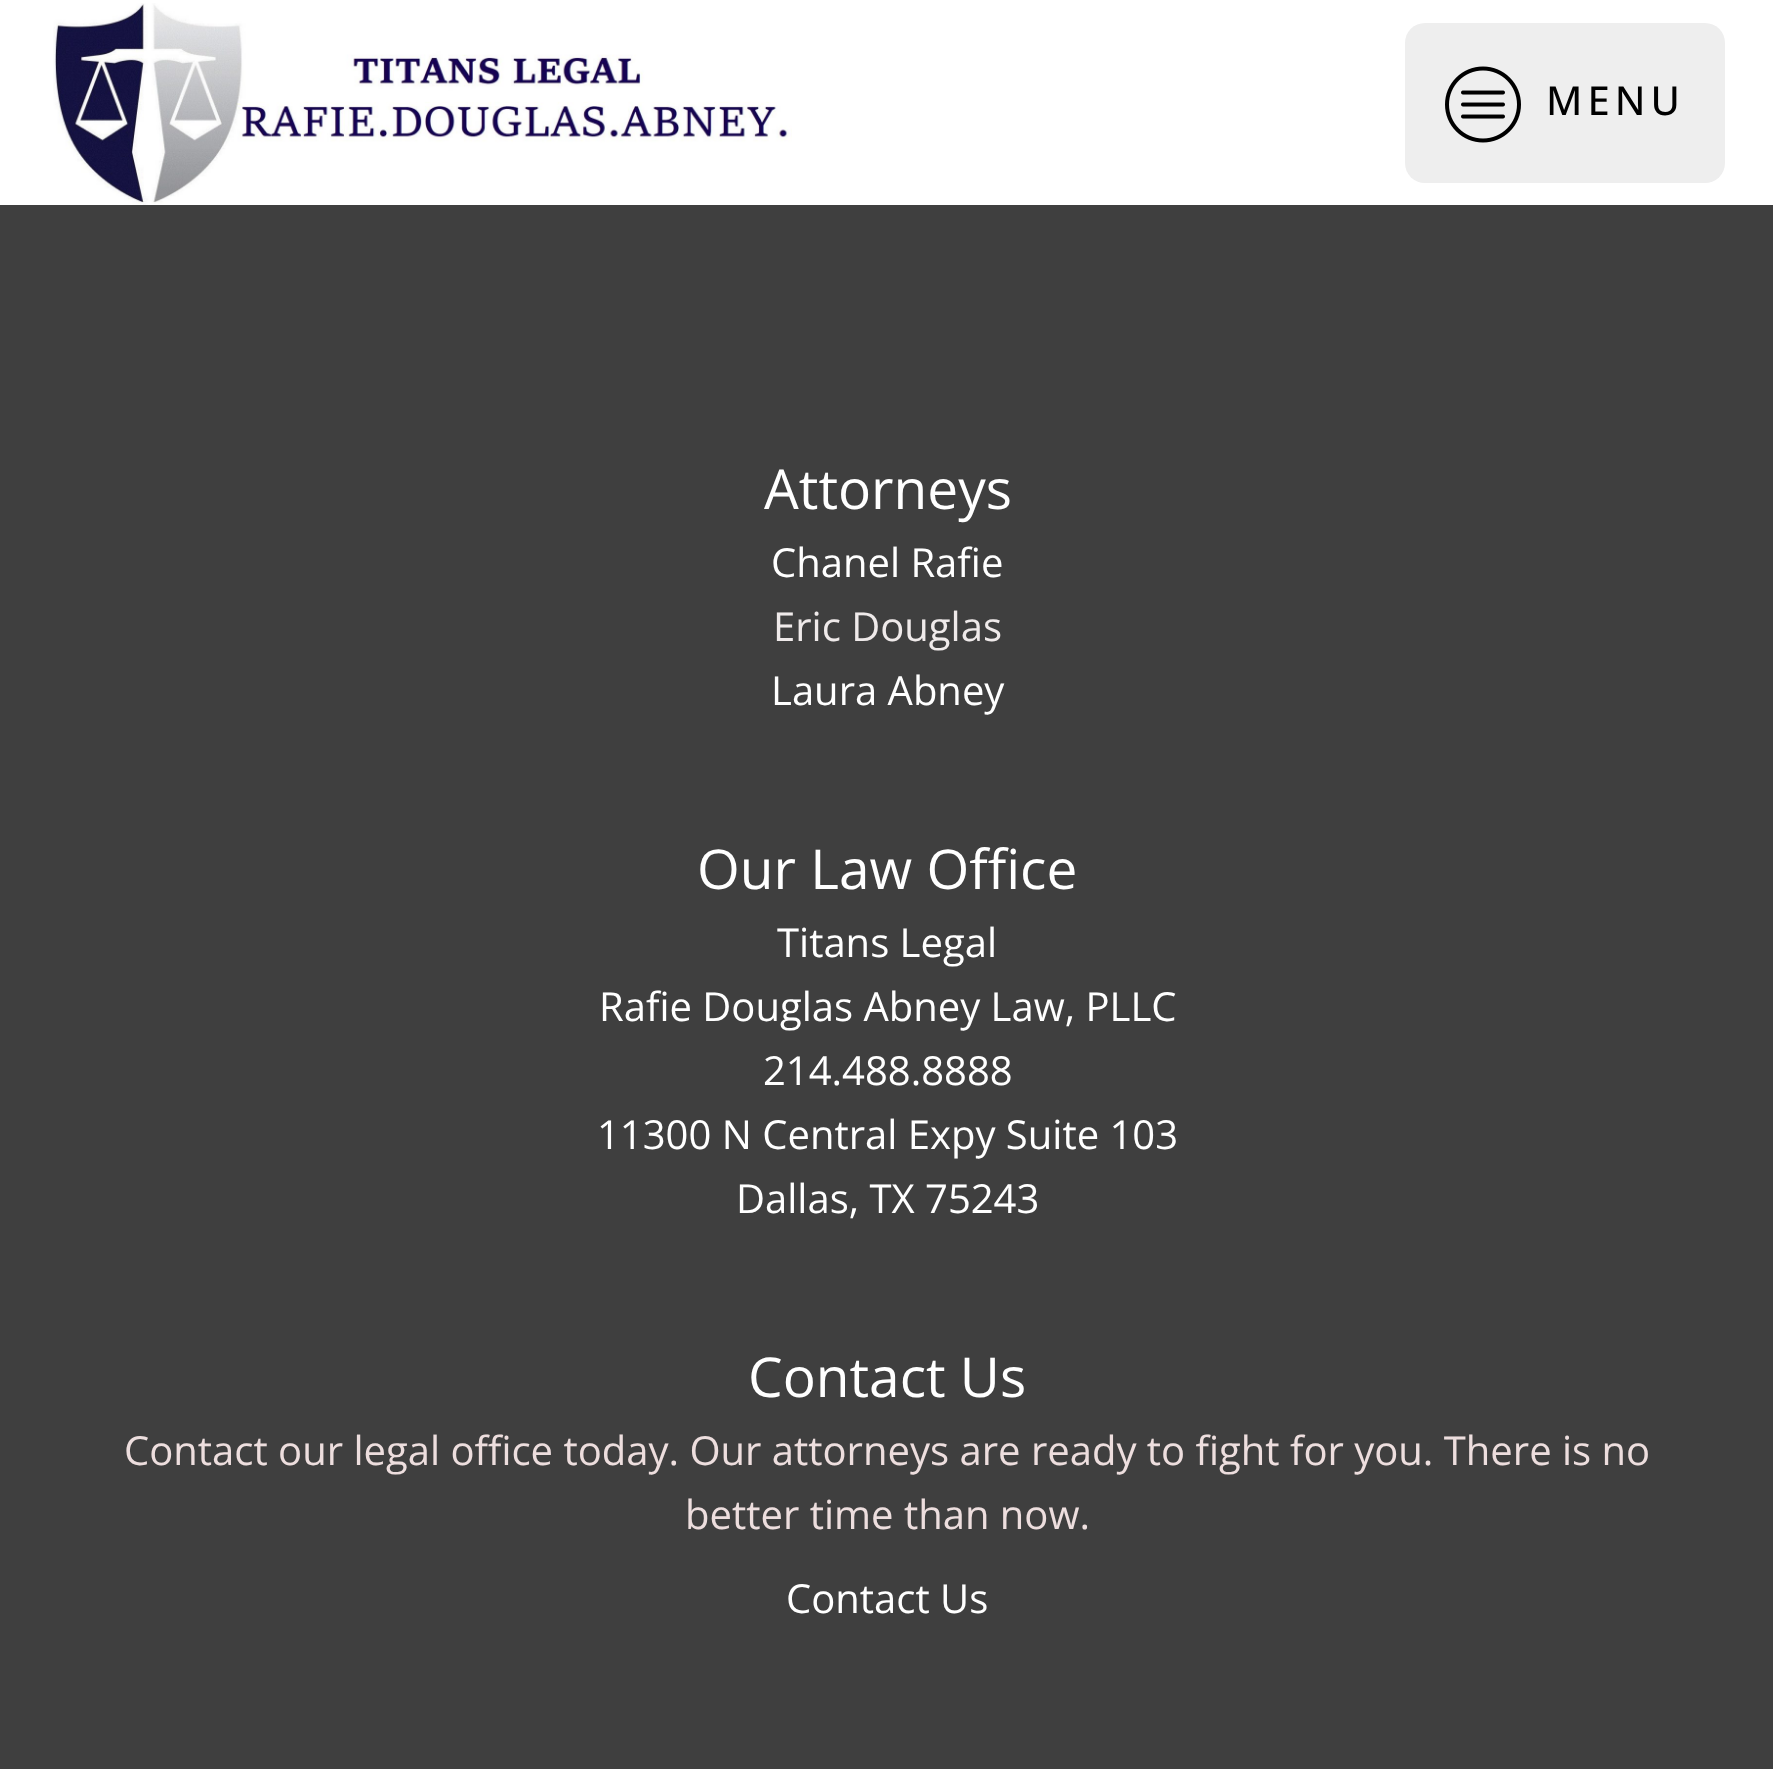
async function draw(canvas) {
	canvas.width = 1773;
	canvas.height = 1769;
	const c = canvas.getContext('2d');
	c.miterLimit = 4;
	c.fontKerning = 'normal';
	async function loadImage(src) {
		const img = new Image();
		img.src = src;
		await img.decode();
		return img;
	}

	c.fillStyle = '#fff';
	c.fillRect(0, 0, 1773, 1769);
	c.drawImage(await loadImage('img1.png'), 53, 3, 739, 202);
	c.fillStyle = '#eee';
	c.beginPath();
	c.roundRect(1405, 23, 320, 160, 20);
	c.fill();
	c.drawImage(await loadImage('img2.png'), 1445, 66, 76, 77);
	c.letterSpacing = '5px';
	c.font = '500 40px Open Sans';
	c.fillStyle = '#000';
	c.fillText('MENU', 1546, 115);
	c.fillStyle = '#3f3f3f';
	c.fillRect(0, 205, 1773, 1564);
	c.letterSpacing = '0px';
	c.font = '55px Open Sans';
	c.fillStyle = '#fff';
	c.fillText('Attorneys', 764, 509);
	c.font = '40px Open Sans';
	c.fillText('Chanel Rafie', 771, 577);
	c.fillStyle = '#efeaea';
	c.fillText('Eric Douglas', 773, 641);
	c.fillStyle = '#fff';
	c.fillText('Laura Abney', 771, 705);
	c.font = '55px Open Sans';
	c.fillText('Our Law Office', 697, 889);
	c.font = '40px Open Sans';
	for (const [text, x, y] of [
		['Titans Legal', 777, 957],
		['Rafie Douglas Abney Law, PLLC', 599, 1021],
		['214.488.8888', 763, 1085],
		['11300 N Central Expy Suite 103', 597, 1149],
		['Dallas, TX 75243', 736, 1213],
	]) {
		c.fillText(text, x, y);
	}
	c.font = '55px Open Sans';
	c.fillText('Contact Us', 748, 1397);
	c.font = '40px Open Sans';
	c.fillStyle = '#eddede';
	c.fillText('Contact our legal office today. Our attorneys are ready to fight for you. There is no', 124, 1465);
	c.fillText('better time than now.', 685, 1529);
	c.fillStyle = '#fff';
	c.fillText('Contact Us', 786, 1613);
}

draw(document.querySelector('canvas'));
